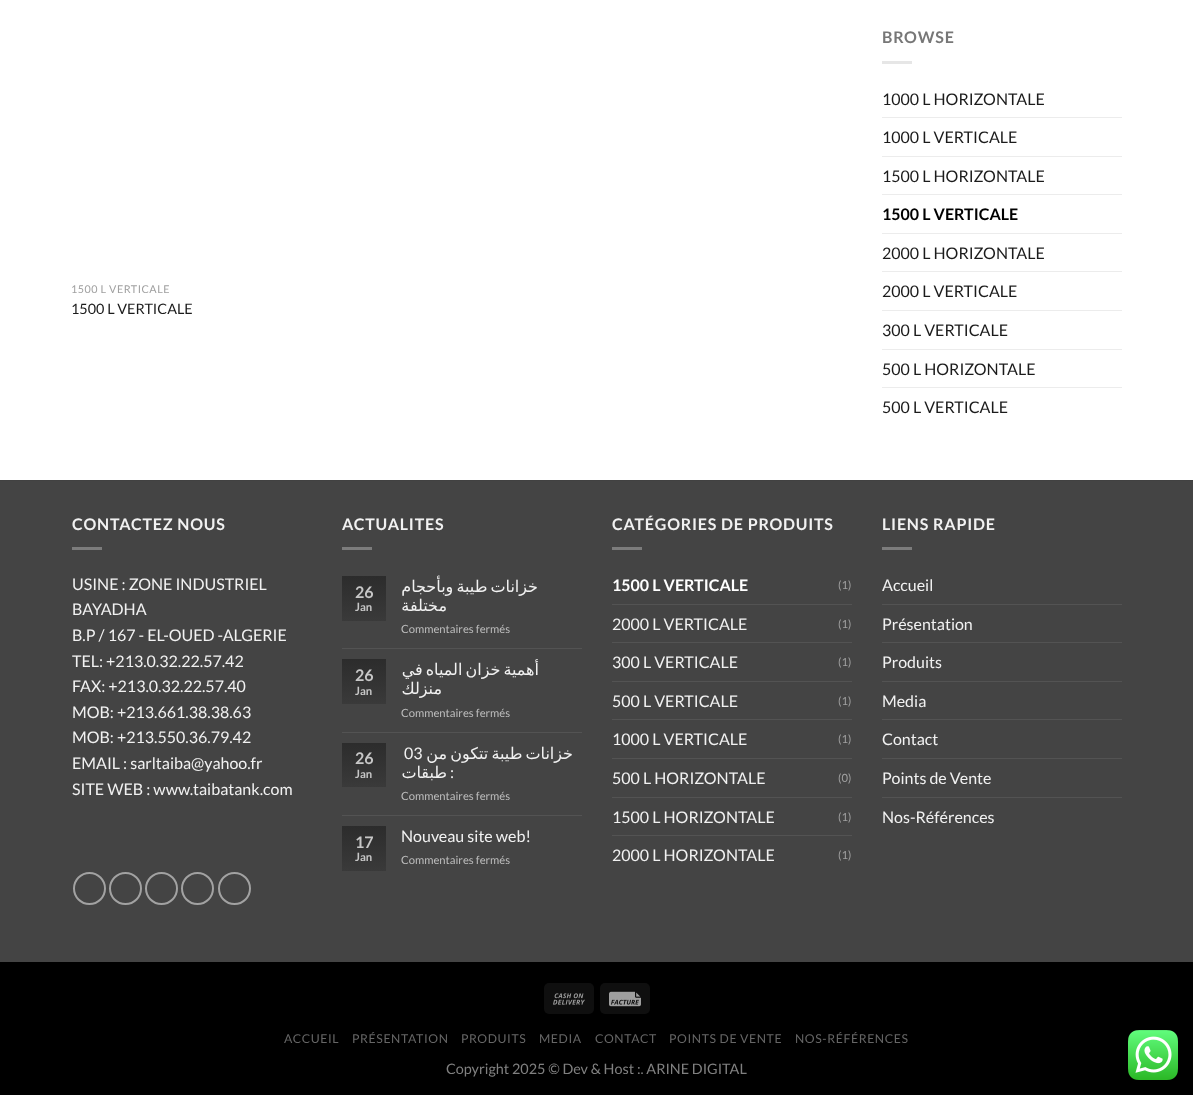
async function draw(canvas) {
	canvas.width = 1193;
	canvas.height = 1095;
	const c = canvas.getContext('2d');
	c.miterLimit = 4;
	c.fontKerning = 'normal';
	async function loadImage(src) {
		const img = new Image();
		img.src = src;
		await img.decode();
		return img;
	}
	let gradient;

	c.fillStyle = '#fff';
	c.fillRect(0, 0, 1193, 1095);
	c.letterSpacing = '0.5px';
	c.font = '10.75px Lato';
	c.fillStyle = '#a0a0a0';
	c.fillText('1500 L VERTICALE', 71, 293);
	c.letterSpacing = '0px';
	c.font = '14.4px Lato';
	c.fillStyle = '#1b1b1b';
	c.fillText('1500 L VERTICALE', 71, 314);
	c.letterSpacing = '0.8px';
	c.font = 'bold 16px Lato';
	c.fillStyle = '#777';
	c.fillText('BROWSE', 882, 43);
	c.fillStyle = '#e6e6e6';
	c.fillRect(882, 61, 30, 3);
	c.letterSpacing = '0px';
	c.font = '16px Lato';
	c.fillStyle = '#1b1b1b';
	c.fillText('1000 L HORIZONTALE', 882, 105);
	c.fillStyle = '#ececec';
	c.fillRect(882, 117, 240, 1);
	c.fillStyle = '#1b1b1b';
	c.fillText('1000 L VERTICALE', 882, 143);
	c.fillStyle = '#ececec';
	c.fillRect(882, 156, 240, 1);
	c.fillStyle = '#1b1b1b';
	c.fillText('1500 L HORIZONTALE', 882, 182);
	c.fillStyle = '#ececec';
	c.fillRect(882, 194, 240, 1);
	c.font = 'bold 16px Lato';
	c.fillStyle = '#000';
	c.fillText('1500 L VERTICALE', 882, 220);
	c.fillStyle = '#ececec';
	c.fillRect(882, 233, 240, 1);
	c.font = '16px Lato';
	c.fillStyle = '#1b1b1b';
	c.fillText('2000 L HORIZONTALE', 882, 259);
	c.fillStyle = '#ececec';
	c.fillRect(882, 271, 240, 1);
	c.fillStyle = '#1b1b1b';
	c.fillText('2000 L VERTICALE', 882, 297);
	c.fillStyle = '#ececec';
	c.fillRect(882, 310, 240, 1);
	c.fillStyle = '#1b1b1b';
	c.fillText('300 L VERTICALE', 882, 336);
	c.fillStyle = '#ececec';
	c.fillRect(882, 349, 240, 1);
	c.fillStyle = '#1b1b1b';
	c.fillText('500 L HORIZONTALE', 882, 375);
	c.fillStyle = '#ececec';
	c.fillRect(882, 387, 240, 1);
	c.fillStyle = '#1b1b1b';
	c.fillText('500 L VERTICALE', 882, 413);
	c.fillStyle = '#444';
	c.fillRect(0, 481, 1193, 481);
	c.fillStyle = '#414141';
	c.fillRect(0, 480, 1193, 1);
	c.letterSpacing = '0.8px';
	c.font = 'bold 16px Lato';
	c.fillStyle = '#f1f1f1';
	c.fillText('CONTACTEZ NOUS', 72, 530);
	c.fillStyle = '#7c7c7c';
	c.fillRect(72, 547, 30, 3);
	c.letterSpacing = '0px';
	c.font = '16px Lato';
	c.fillStyle = '#f1f1f1';
	for (const [text, x, y] of [
		['USINE : ZONE INDUSTRIEL', 72, 590],
		['BAYADHA', 72, 615],
		['B.P / 167 - EL-OUED -ALGERIE', 72, 641],
		['TEL: +213.0.32.22.57.42', 72, 667],
		['FAX: +213.0.32.22.57.40', 72, 692],
		['MOB: +213.661.38.38.63', 72, 718],
		['MOB: +213.550.36.79.42', 72, 743],
		['EMAIL : sarltaiba@yahoo.fr', 72, 769],
		['SITE WEB : www.taibatank.com', 72, 795],
	]) {
		c.fillText(text, x, y);
	}
	c.beginPath();
	c.arc(89.5, 888.5, 15.5, 0, 2 * Math.PI);
	c.strokeStyle = '#a2a2a2';
	c.lineWidth = 2;
	c.stroke();
	c.beginPath();
	c.arc(125.5, 888.5, 15.5, 0, 2 * Math.PI);
	c.stroke();
	c.beginPath();
	c.arc(161.5, 888.5, 15.5, 0, 2 * Math.PI);
	c.stroke();
	c.beginPath();
	c.arc(197.5, 888.5, 15.5, 0, 2 * Math.PI);
	c.stroke();
	c.beginPath();
	c.arc(234.5, 888.5, 15.5, 0, 2 * Math.PI);
	c.stroke();
	c.letterSpacing = '0.8px';
	c.font = 'bold 16px Lato';
	c.fillText('ACTUALITES', 342, 530);
	c.fillStyle = '#7c7c7c';
	c.fillRect(342, 547, 30, 3);
	gradient = c.createLinearGradient(364, 576, 364, 621);
	gradient.addColorStop(0, '#2c2c2c');
	gradient.addColorStop(1, '#3a3a3a');
	c.fillStyle = gradient;
	c.fillRect(342, 576, 44, 45);
	c.letterSpacing = '0px';
	c.fillStyle = '#c7c7c7';
	c.fillText('26', 355, 598);
	c.font = 'bold 11.25px Lato';
	c.fillText('Jan', 355, 611);
	c.wordSpacing = '-2px';
	c.direction = 'rtl';
	c.font = '16px DejaVu Sans';
	c.fillStyle = '#f1f1f1';
	c.fillText('خزانات طيبة وبأحجام', 538, 592);
	c.wordSpacing = '0px';
	c.fillText('مختلفة', 447, 611);
	c.direction = 'ltr';
	c.font = '11.25px Lato';
	c.fillStyle = '#bdbdbd';
	c.fillText('Commentaires fermés', 401, 633);
	c.fillStyle = '#535353';
	c.fillRect(342, 648, 240, 1);
	gradient = c.createLinearGradient(364, 659, 364, 704);
	gradient.addColorStop(0, '#2c2c2c');
	gradient.addColorStop(1, '#3a3a3a');
	c.fillStyle = gradient;
	c.fillRect(342, 659, 44, 45);
	c.font = 'bold 16px Lato';
	c.fillStyle = '#c7c7c7';
	c.fillText('26', 355, 681);
	c.font = 'bold 11.25px Lato';
	c.fillText('Jan', 355, 695);
	c.wordSpacing = '-2px';
	c.direction = 'rtl';
	c.font = '16px DejaVu Sans';
	c.fillStyle = '#f1f1f1';
	c.fillText('أهمية خزان المياه في', 539, 675);
	c.wordSpacing = '0px';
	c.fillText('منزلك', 442, 694);
	c.direction = 'ltr';
	c.font = '11.25px Lato';
	c.fillStyle = '#bdbdbd';
	c.fillText('Commentaires fermés', 401, 717);
	c.fillStyle = '#535353';
	c.fillRect(342, 732, 240, 1);
	gradient = c.createLinearGradient(364, 743, 364, 787);
	gradient.addColorStop(0, '#2c2c2c');
	gradient.addColorStop(1, '#3a3a3a');
	c.fillStyle = gradient;
	c.fillRect(342, 743, 44, 44);
	c.font = 'bold 16px Lato';
	c.fillStyle = '#c7c7c7';
	c.fillText('26', 355, 764);
	c.font = 'bold 11.25px Lato';
	c.fillText('Jan', 355, 778);
	c.font = '16px Lato';
	c.fillStyle = '#f1f1f1';
	c.fillText('03', 404, 759);
	c.wordSpacing = '-2px';
	c.direction = 'rtl';
	c.font = '16px DejaVu Sans';
	c.fillText('خزانات طيبة تتكون من', 573, 759);
	c.wordSpacing = '0px';
	c.fillText('طبقات', 447, 778);
	c.direction = 'ltr';
	c.font = '16px Lato';
	c.fillText(':', 450, 778);
	c.font = '11.25px Lato';
	c.fillStyle = '#bdbdbd';
	c.fillText('Commentaires fermés', 401, 800);
	c.fillStyle = '#535353';
	c.fillRect(342, 815, 240, 1);
	gradient = c.createLinearGradient(364, 826, 364, 871);
	gradient.addColorStop(0, '#2c2c2c');
	gradient.addColorStop(1, '#3a3a3a');
	c.fillStyle = gradient;
	c.fillRect(342, 826, 44, 45);
	c.font = 'bold 16px Lato';
	c.fillStyle = '#c7c7c7';
	c.fillText('17', 355, 848);
	c.font = 'bold 11.25px Lato';
	c.fillText('Jan', 355, 861);
	c.font = '16px Lato';
	c.fillStyle = '#f1f1f1';
	c.fillText('Nouveau site web!', 401, 842);
	c.font = '11.25px Lato';
	c.fillStyle = '#bdbdbd';
	c.fillText('Commentaires fermés', 401, 864);
	c.letterSpacing = '0.8px';
	c.font = 'bold 16px Lato';
	c.fillStyle = '#f1f1f1';
	c.fillText('CATÉGORIES DE PRODUITS', 612, 530);
	c.fillStyle = '#7c7c7c';
	c.fillRect(612, 547, 30, 3);
	c.letterSpacing = '0px';
	c.fillStyle = '#fff';
	c.fillText('1500 L VERTICALE', 612, 591);
	c.font = '11.25px Lato';
	c.fillStyle = '#a0a0a0';
	c.fillText('(1)', 838, 589);
	c.fillStyle = '#535353';
	c.fillRect(612, 604, 240, 1);
	c.font = '16px Lato';
	c.fillStyle = '#f1f1f1';
	c.fillText('2000 L VERTICALE', 612, 630);
	c.font = '11.25px Lato';
	c.fillStyle = '#a0a0a0';
	c.fillText('(1)', 838, 628);
	c.fillStyle = '#535353';
	c.fillRect(612, 642, 240, 1);
	c.font = '16px Lato';
	c.fillStyle = '#f1f1f1';
	c.fillText('300 L VERTICALE', 612, 668);
	c.font = '11.25px Lato';
	c.fillStyle = '#a0a0a0';
	c.fillText('(1)', 838, 666);
	c.fillStyle = '#535353';
	c.fillRect(612, 681, 240, 1);
	c.font = '16px Lato';
	c.fillStyle = '#f1f1f1';
	c.fillText('500 L VERTICALE', 612, 707);
	c.font = '11.25px Lato';
	c.fillStyle = '#a0a0a0';
	c.fillText('(1)', 838, 705);
	c.fillStyle = '#535353';
	c.fillRect(612, 719, 240, 1);
	c.font = '16px Lato';
	c.fillStyle = '#f1f1f1';
	c.fillText('1000 L VERTICALE', 612, 745);
	c.font = '11.25px Lato';
	c.fillStyle = '#a0a0a0';
	c.fillText('(1)', 838, 743);
	c.fillStyle = '#535353';
	c.fillRect(612, 758, 240, 1);
	c.font = '16px Lato';
	c.fillStyle = '#f1f1f1';
	c.fillText('500 L HORIZONTALE', 612, 784);
	c.font = '11.25px Lato';
	c.fillStyle = '#a0a0a0';
	c.fillText('(0)', 838, 782);
	c.fillStyle = '#535353';
	c.fillRect(612, 797, 240, 1);
	c.font = '16px Lato';
	c.fillStyle = '#f1f1f1';
	c.fillText('1500 L HORIZONTALE', 612, 823);
	c.font = '11.25px Lato';
	c.fillStyle = '#a0a0a0';
	c.fillText('(1)', 838, 821);
	c.fillStyle = '#535353';
	c.fillRect(612, 835, 240, 1);
	c.font = '16px Lato';
	c.fillStyle = '#f1f1f1';
	c.fillText('2000 L HORIZONTALE', 612, 861);
	c.font = '11.25px Lato';
	c.fillStyle = '#a0a0a0';
	c.fillText('(1)', 838, 859);
	c.letterSpacing = '0.8px';
	c.font = 'bold 16px Lato';
	c.fillStyle = '#f1f1f1';
	c.fillText('LIENS RAPIDE', 882, 530);
	c.fillStyle = '#7c7c7c';
	c.fillRect(882, 547, 30, 3);
	c.letterSpacing = '0px';
	c.font = '16px Lato';
	c.fillStyle = '#f1f1f1';
	c.fillText('Accueil', 882, 591);
	c.fillStyle = '#535353';
	c.fillRect(882, 604, 240, 1);
	c.fillStyle = '#f1f1f1';
	c.fillText('Présentation', 882, 630);
	c.fillStyle = '#535353';
	c.fillRect(882, 642, 240, 1);
	c.fillStyle = '#f1f1f1';
	c.fillText('Produits', 882, 668);
	c.fillStyle = '#535353';
	c.fillRect(882, 681, 240, 1);
	c.fillStyle = '#f1f1f1';
	c.fillText('Media', 882, 707);
	c.fillStyle = '#535353';
	c.fillRect(882, 719, 240, 1);
	c.fillStyle = '#f1f1f1';
	c.fillText('Contact', 882, 745);
	c.fillStyle = '#535353';
	c.fillRect(882, 758, 240, 1);
	c.fillStyle = '#f1f1f1';
	c.fillText('Points de Vente', 882, 784);
	c.fillStyle = '#535353';
	c.fillRect(882, 797, 240, 1);
	c.fillStyle = '#f1f1f1';
	c.fillText('Nos-Références', 882, 823);
	c.fillStyle = '#000';
	c.fillRect(0, 962, 1193, 133);
	c.fillStyle = '#0f0f0f';
	c.beginPath();
	c.roundRect(544, 983, 50, 31, 5);
	c.fill();
	c.drawImage(await loadImage('img1.png'), 553, 993, 32, 12);
	c.beginPath();
	c.roundRect(600, 983, 50, 31, 5);
	c.fill();
	c.drawImage(await loadImage('img2.png'), 609, 991, 32, 16);
	c.letterSpacing = '0.6px';
	c.font = '12.25px Lato';
	c.fillStyle = '#666';
	for (const [text, x, y] of [
		['ACCUEIL', 284, 1043],
		['PRÉSENTATION', 352, 1043],
		['PRODUITS', 461, 1043],
		['MEDIA', 539, 1043],
		['CONTACT', 595, 1043],
		['POINTS DE VENTE', 669, 1043],
		['NOS-RÉFÉRENCES', 795, 1043],
	]) {
		c.fillText(text, x, y);
	}
	c.letterSpacing = '0px';
	c.font = '14.4px Lato';
	c.fillStyle = '#808080';
	c.fillText('Copyright 2025 © Dev & Host :. ARINE DIGITAL', 446, 1074);
	c.drawImage(await loadImage('img3.png'), 1128, 1030, 50, 50);
}

draw(document.querySelector('canvas'));
